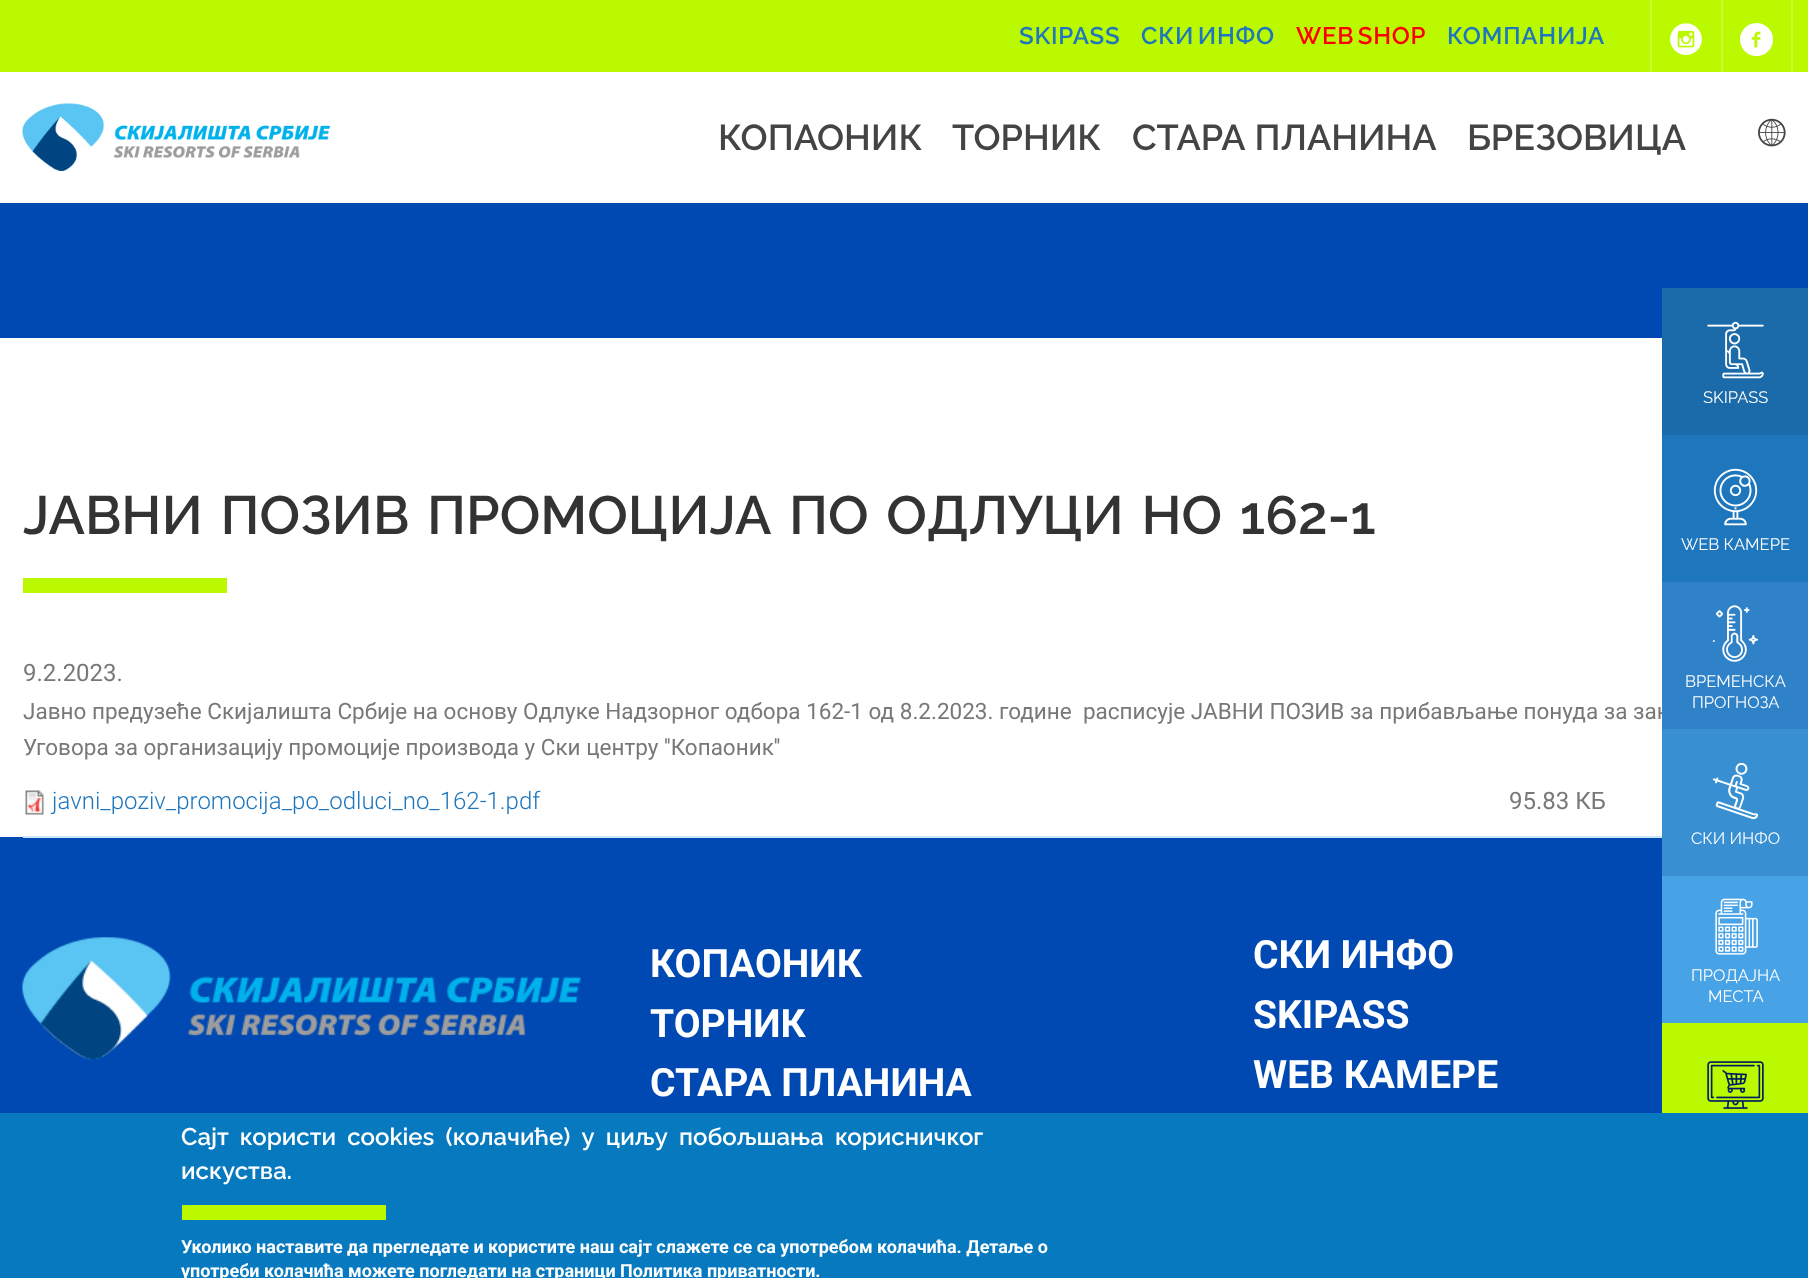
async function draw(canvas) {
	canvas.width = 1808;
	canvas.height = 1278;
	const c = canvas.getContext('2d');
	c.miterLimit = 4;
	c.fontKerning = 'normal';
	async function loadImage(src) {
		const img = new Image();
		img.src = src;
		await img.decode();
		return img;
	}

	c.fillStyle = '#fff';
	c.fillRect(0, 0, 1808, 1278);
	c.fillStyle = '#bbf900';
	c.fillRect(0, 0, 1808, 72);
	c.letterSpacing = '0.75px';
	c.font = '600 24px Raleway';
	c.fillStyle = '#1e76bd';
	c.fillText('SKIPASS', 1019, 44);
	c.wordSpacing = '-3px';
	c.fillText('СКИ ИНФО', 1141, 44);
	c.fillStyle = '#f00';
	c.fillText('WEB SHOP', 1296, 44);
	c.wordSpacing = '0px';
	c.fillStyle = '#1e76bd';
	c.fillText('КОМПАНИЈА', 1447, 44);
	c.fillStyle = '#c9fa33';
	c.fillRect(1650, 0, 2, 72);
	c.drawImage(await loadImage('img1.png'), 1670, 23, 32, 32);
	c.fillRect(1721, 0, 2, 72);
	c.drawImage(await loadImage('img2.png'), 1740, 23, 33, 34);
	c.fillRect(1791, 0, 2, 72);
	c.drawImage(await loadImage('img3.png'), 22, 103, 308, 68);
	c.letterSpacing = '0px';
	c.font = '600 36px Raleway';
	c.fillStyle = '#444';
	for (const [text, x, y] of [
		['КОПАОНИК', 718, 150],
		['ТОРНИК', 952, 150],
		['СТАРА ПЛАНИНА', 1132, 150],
		['БРЕЗОВИЦА', 1467, 150],
	]) {
		c.fillText(text, x, y);
	}
	c.drawImage(await loadImage('img4.png'), 1758, 118, 28, 29);
	c.fillStyle = '#0049b2';
	c.fillRect(0, 203, 1808, 135);
	c.wordSpacing = '4.25px';
	c.font = '600 54px Raleway';
	c.fillStyle = '#333';
	c.fillText('ЈАВНИ ПОЗИВ ПРОМОЦИЈА ПО ОДЛУЦИ НО 162-1', 23, 534);
	c.fillStyle = '#bbf900';
	c.fillRect(23, 578, 204, 15);
	c.wordSpacing = '0px';
	c.font = '24px Roboto';
	c.fillStyle = '#787878';
	c.fillText('9.2.2023.', 23, 681);
	c.font = '22.5px Roboto';
	c.fillText('Јавно предузеће Скијалишта Србије на основу Одлуке Надзорног одбора 162-1 од 8.2.2023. године  расписује ЈАВНИ ПОЗИВ за прибављање понуда за зак', 23, 719);
	c.fillText('Уговора за организацију промоције производа у Ски центру \'\'Копаоник\'\'', 23, 755);
	c.fillStyle = '#0049b2';
	c.fillRect(0, 837, 1662, 276);
	c.fillStyle = '#cce5ff';
	c.fillRect(23, 836, 1639, 2);
	c.drawImage(await loadImage('img5.png'), 25, 790, 19, 25);
	c.font = '300 24px Roboto';
	c.fillStyle = '#1e76bd';
	c.fillText('javni_poziv_promocija_po_odluci_no_162-1.pdf', 52, 809);
	c.font = '24px Roboto';
	c.fillStyle = '#787878';
	c.fillText('95.83 КБ', 1509, 809);
	c.fillStyle = '#1b6aaa';
	c.fillRect(1662, 288, 146, 147);
	c.drawImage(await loadImage('img6.png'), 1707, 321, 57, 58);
	c.font = '16.5px Raleway';
	c.fillStyle = '#fff';
	c.fillText('SKIPASS', 1703, 403);
	c.fillStyle = '#1e76bd';
	c.fillRect(1662, 435, 146, 147);
	c.drawImage(await loadImage('img7.png'), 1713, 468, 45, 58);
	c.fillStyle = '#fff';
	c.fillText('WEB КАМЕРЕ', 1681, 550);
	c.fillStyle = '#2f81c8';
	c.fillRect(1662, 582, 146, 147);
	c.drawImage(await loadImage('img8.png'), 1712, 605, 47, 57);
	c.fillStyle = '#fff';
	c.fillText('ВРЕМЕНСКА', 1685, 687);
	c.fillText('ПРОГНОЗА', 1692, 708);
	c.fillStyle = '#3890d2';
	c.fillRect(1662, 729, 146, 147);
	c.drawImage(await loadImage('img9.png'), 1712, 762, 47, 58);
	c.fillStyle = '#fff';
	c.fillText('СКИ ИНФО', 1691, 844);
	c.fillStyle = '#47a2e6';
	c.fillRect(1662, 876, 146, 147);
	c.drawImage(await loadImage('img10.png'), 1715, 898, 43, 57);
	c.fillStyle = '#fff';
	c.fillText('ПРОДАЈНА', 1691, 981);
	c.fillText('МЕСТА', 1708, 1002);
	c.fillStyle = '#bbf900';
	c.fillRect(1662, 1023, 146, 90);
	c.drawImage(await loadImage('img11.png'), 1707, 1061, 57, 48);
	c.drawImage(await loadImage('img12.png'), 22, 937, 559, 123);
	c.font = 'bold 39px Roboto';
	c.fillStyle = '#fff';
	for (const [text, x, y] of [
		['КОПАОНИК', 650, 977],
		['ТОРНИК', 650, 1037],
		['СТАРА ПЛАНИНА', 650, 1096],
		['СКИ ИНФО', 1253, 968],
		['SKIPASS', 1253, 1028],
		['WEB КАМЕРЕ', 1253, 1088],
	]) {
		c.fillText(text, x, y);
	}
	c.fillStyle = '#0779bf';
	c.fillRect(0, 1113, 1808, 165);
	c.wordSpacing = '5.25px';
	c.font = '600 24px Raleway';
	c.fillStyle = '#fff';
	c.fillText('Сајт користи cookies (колачиће) у циљу побољшања корисничког', 181, 1145);
	c.wordSpacing = '0px';
	c.fillText('искуства.', 181, 1179);
	c.fillStyle = '#bbf900';
	c.fillRect(182, 1205, 204, 15);
	c.font = 'bold 18px Roboto';
	c.fillStyle = '#fff';
	c.fillText('Уколико наставите да прегледате и користите наш сајт слажете се са употребом колачића. Детаље о', 181, 1253);
	c.fillText('употреби колачића можете погледати на страници Политика приватности.', 181, 1277);
}

draw(document.querySelector('canvas'));
